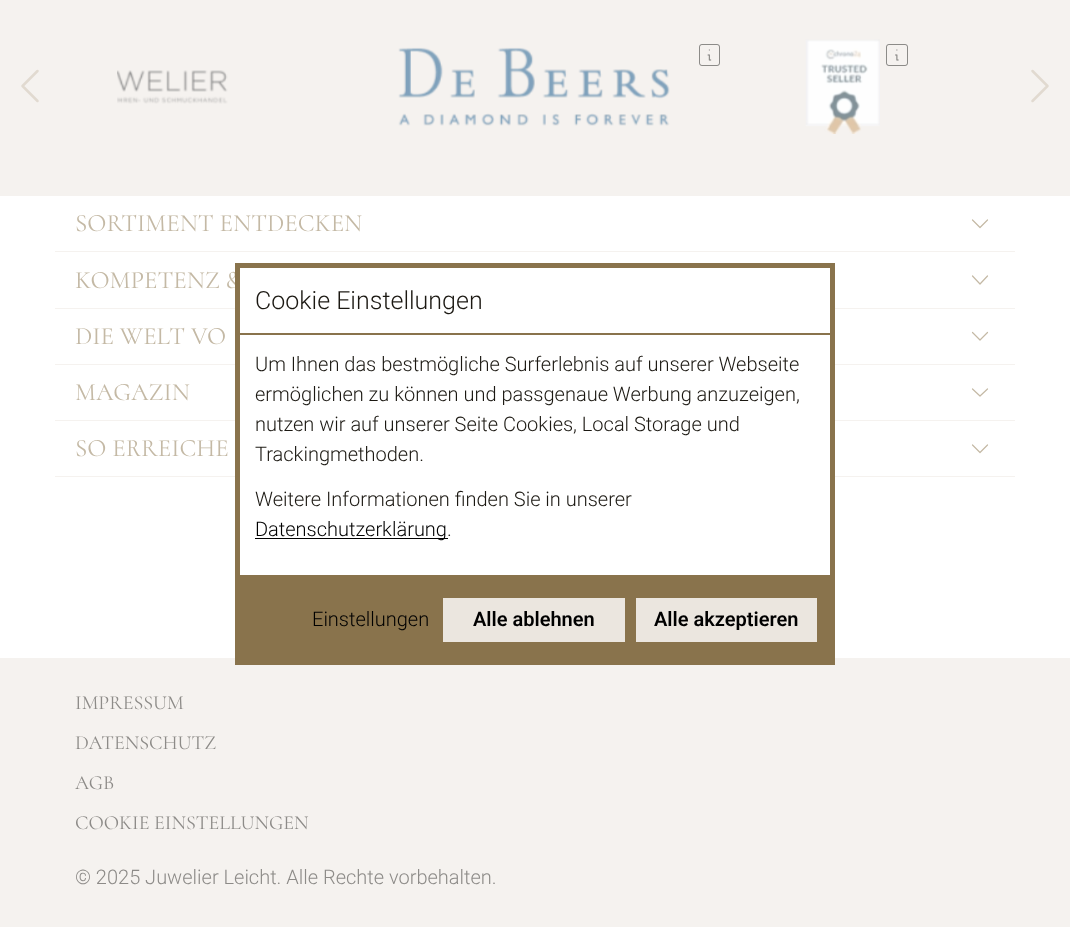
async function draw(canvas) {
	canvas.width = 1070;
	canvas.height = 927;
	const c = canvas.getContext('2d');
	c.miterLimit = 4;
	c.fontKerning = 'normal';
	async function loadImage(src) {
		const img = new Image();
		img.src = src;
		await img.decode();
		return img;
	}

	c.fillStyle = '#fff';
	c.fillRect(0, 0, 1070, 927);
	c.fillStyle = '#f5f2ef';
	c.fillRect(0, 0, 1070, 196);
	c.beginPath();
	c.moveTo(37.5, 71);
	c.lineTo(22.5, 86);
	c.lineTo(37.5, 101);
	c.strokeStyle = '#e1dad0';
	c.lineWidth = 2.5;
	c.lineCap = 'round';
	c.lineJoin = 'round';
	c.stroke();
	c.drawImage(await loadImage('img1.png'), 117, 70, 111, 34);
	c.drawImage(await loadImage('img2.png'), 398, 47, 272, 79);
	c.drawImage(await loadImage('img3.png'), 699, 44, 21, 22);
	c.drawImage(await loadImage('img4.png'), 805, 39, 75, 95);
	c.drawImage(await loadImage('img5.png'), 886, 44, 22, 22);
	c.beginPath();
	c.moveTo(1032.5, 71);
	c.lineTo(1047.5, 86);
	c.lineTo(1032.5, 101);
	c.stroke();
	c.fillRect(55, 251, 960, 1);
	c.font = '25px Cormorant';
	c.fillStyle = '#c4b9a5';
	c.fillText('SORTIMENT ENTDECKEN', 75, 231);
	c.beginPath();
	c.moveTo(987.5, 220);
	c.lineTo(980, 227.5);
	c.lineTo(972.5, 220);
	c.strokeStyle = '#c4b9a5';
	c.lineWidth = 1.2;
	c.stroke();
	c.fillStyle = '#f5f2ef';
	c.fillRect(55, 308, 960, 1);
	c.fillStyle = '#c4b9a5';
	c.fillText('KOMPETENZ &', 75, 288);
	c.beginPath();
	c.moveTo(987.5, 276);
	c.lineTo(980, 284);
	c.lineTo(972.5, 276);
	c.stroke();
	c.fillStyle = '#f5f2ef';
	c.fillRect(55, 364, 960, 1);
	c.fillStyle = '#c4b9a5';
	c.fillText('DIE WELT VO', 75, 344);
	c.beginPath();
	c.moveTo(987.5, 332.5);
	c.lineTo(980, 340);
	c.lineTo(972.5, 332.5);
	c.stroke();
	c.fillStyle = '#f5f2ef';
	c.fillRect(55, 420, 960, 1);
	c.fillStyle = '#c4b9a5';
	c.fillText('MAGAZIN', 75, 400);
	c.beginPath();
	c.moveTo(987.5, 389);
	c.lineTo(980, 396);
	c.lineTo(972.5, 389);
	c.stroke();
	c.fillStyle = '#f5f2ef';
	c.fillRect(55, 476, 960, 1);
	c.fillStyle = '#c4b9a5';
	c.fillText('SO ERREICHE', 75, 456);
	c.beginPath();
	c.moveTo(987.5, 445);
	c.lineTo(980, 452.5);
	c.lineTo(972.5, 445);
	c.stroke();
	c.fillStyle = '#f5f2ef';
	c.fillRect(0, 658, 1070, 269);
	c.font = '20px Cormorant';
	c.fillStyle = '#8d8b88';
	for (const [text, x, y] of [
		['IMPRESSUM', 75, 709],
		['DATENSCHUTZ', 75, 749],
		['AGB', 75, 789],
		['COOKIE EINSTELLUNGEN', 75, 829],
	]) {
		c.fillText(text, x, y);
	}
	c.font = '300 20px Roboto';
	c.fillText('© 2025 Juwelier Leicht. Alle Rechte vorbehalten.', 75, 884);
	c.fillStyle = '#89734c';
	c.fillRect(235, 263, 600, 402);
	c.fillStyle = '#fff';
	c.fillRect(240, 268, 590, 65);
	c.font = '300 25px Roboto';
	c.fillStyle = '#1b1812';
	c.fillText('Cookie Einstellungen', 255, 309);
	c.fillStyle = '#fff';
	c.fillRect(240, 335, 590, 240);
	c.font = '300 20px Roboto';
	c.fillStyle = '#1b1812';
	for (const [text, x, y] of [
		['Um Ihnen das bestmögliche Surferlebnis auf unserer Webseite', 255, 371],
		['ermöglichen zu können und passgenaue Werbung anzuzeigen,', 255, 401],
		['nutzen wir auf unserer Seite Cookies, Local Storage und', 255, 431],
		['Trackingmethoden.', 255, 461],
		['Weitere Informationen finden Sie in unserer', 255, 506],
	]) {
		c.fillText(text, x, y);
	}
	c.fillStyle = '#000';
	c.fillRect(255, 538, 193, 1);
	c.fillText('Datenschutzerklärung', 255, 536);
	c.fillStyle = '#1b1812';
	c.fillText('.', 447, 536);
	c.fillStyle = '#000';
	c.fillText('Einstellungen', 312, 626);
	c.fillStyle = '#ebe6df';
	c.fillRect(443, 598, 182, 44);
	c.font = '600 20px Roboto';
	c.fillStyle = '#000';
	c.fillText('Alle ablehnen', 473, 626);
	c.fillStyle = '#ebe6df';
	c.fillRect(636, 598, 181, 44);
	c.fillStyle = '#000';
	c.fillText('Alle akzeptieren', 654, 626);
}

draw(document.querySelector('canvas'));
